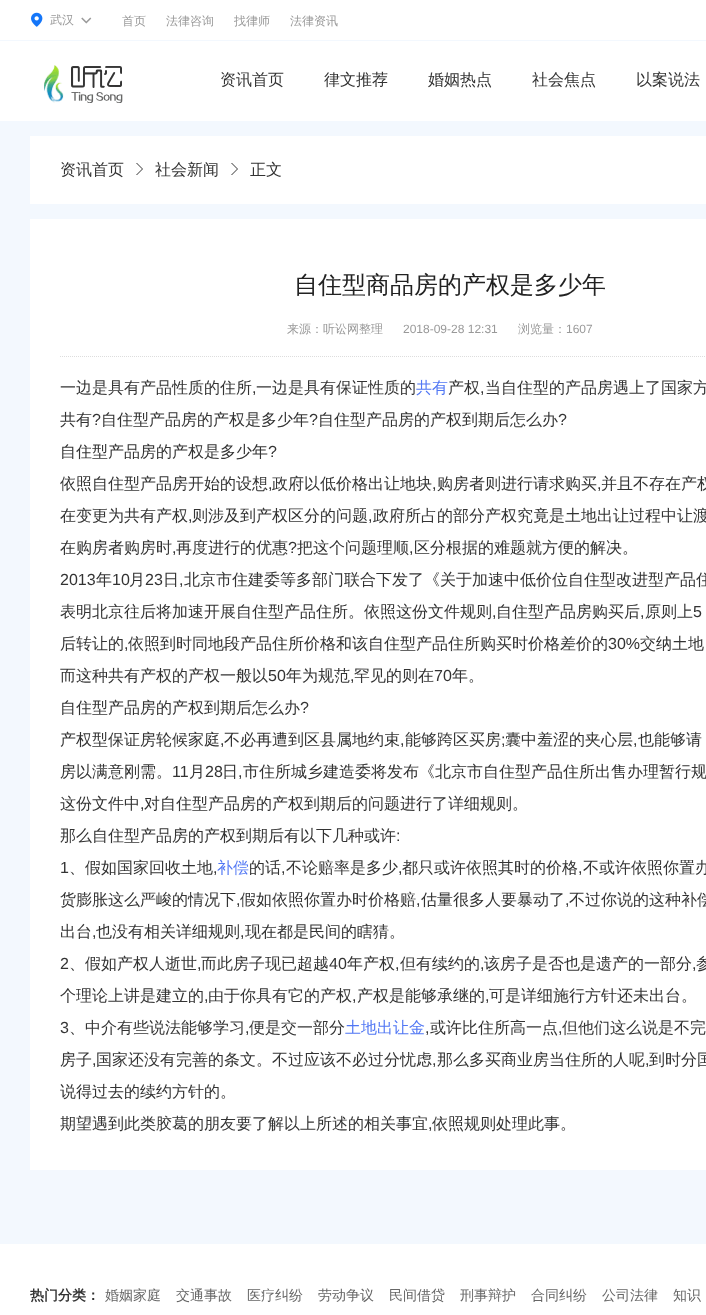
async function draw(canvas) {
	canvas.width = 706;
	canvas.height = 1315;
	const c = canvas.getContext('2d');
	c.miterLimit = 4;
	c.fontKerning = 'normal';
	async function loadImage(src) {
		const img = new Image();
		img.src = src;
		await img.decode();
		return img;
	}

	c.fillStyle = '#f3f8fe';
	c.fillRect(0, 0, 706, 1315);
	c.fillStyle = '#fff';
	c.fillRect(0, 0, 706, 40);
	c.drawImage(await loadImage('img1.png'), 31, 12, 12, 15);
	c.font = '500 12px WenQuanYi Zen Hei';
	c.fillStyle = '#999';
	c.fillText('武汉', 50, 24);
	c.drawImage(await loadImage('img2.png'), 81, 17, 11, 7);
	for (const [text, x, y] of [
		['首页', 122, 25],
		['法律咨询', 166, 25],
		['找律师', 234, 25],
		['法律资讯', 290, 25],
	]) {
		c.fillText(text, x, y);
	}
	c.fillStyle = '#fff';
	c.fillRect(0, 41, 706, 80);
	c.drawImage(await loadImage('img3.png'), 44, 65, 79, 38);
	c.font = '500 16px WenQuanYi Zen Hei';
	c.fillStyle = '#333';
	for (const [text, x, y] of [
		['资讯首页', 220, 85],
		['律文推荐', 324, 85],
		['婚姻热点', 428, 85],
		['社会焦点', 532, 85],
		['以案说法', 636, 85],
	]) {
		c.fillText(text, x, y);
	}
	c.fillStyle = '#fff';
	c.fillRect(30, 136, 676, 68);
	c.fillStyle = '#333';
	c.fillText('资讯首页', 60, 175);
	c.drawImage(await loadImage('img4.png'), 136, 163, 7, 12);
	c.fillText('社会新闻', 155, 175);
	c.drawImage(await loadImage('img4.png'), 231, 163, 7, 12);
	c.fillText('正文', 250, 175);
	c.fillStyle = '#fff';
	c.fillRect(30, 219, 676, 951);
	c.font = '500 24px WenQuanYi Zen Hei';
	c.fillStyle = '#222';
	c.fillText('自住型商品房的产权是多少年', 294, 293);
	c.beginPath();
	c.moveTo(60, 356.5);
	c.lineTo(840, 356.5);
	c.strokeStyle = '#ddd';
	c.setLineDash([1, 1]);
	c.stroke();
	c.font = '500 12px WenQuanYi Zen Hei';
	c.fillStyle = '#999';
	c.fillText('来源：听讼网整理', 287, 333);
	c.font = '12px Liberation Sans';
	c.fillText('2018-09-28 12:31', 403, 333);
	c.font = '500 12px WenQuanYi Zen Hei';
	c.fillText('浏览量：', 518, 333);
	c.font = '12px Liberation Sans';
	c.fillText('1607', 566, 333);
	c.font = '500 16px WenQuanYi Zen Hei';
	c.fillStyle = '#333';
	c.fillText('一边是具有产品性质的住所', 60, 393);
	c.font = '16px Liberation Sans';
	c.fillText(',', 252, 393);
	c.font = '500 16px WenQuanYi Zen Hei';
	c.fillText('一边是具有保证性质的', 256, 393);
	c.fillStyle = '#5177f4';
	c.fillText('共有', 416, 393);
	c.fillStyle = '#333';
	c.fillText('产权', 448, 393);
	c.font = '16px Liberation Sans';
	c.fillText(',', 480, 393);
	c.font = '500 16px WenQuanYi Zen Hei';
	c.fillText('当自住型的产品房遇上了国家方', 485, 393);
	c.fillText('共有', 60, 425);
	c.font = '16px Liberation Sans';
	c.fillText('?', 92, 425);
	c.font = '500 16px WenQuanYi Zen Hei';
	c.fillText('自住型产品房的产权是多少年', 101, 425);
	c.font = '16px Liberation Sans';
	c.fillText('?', 309, 425);
	c.font = '500 16px WenQuanYi Zen Hei';
	c.fillText('自住型产品房的产权到期后怎么办', 318, 425);
	c.font = '16px Liberation Sans';
	c.fillText('?', 558, 425);
	c.font = '500 16px WenQuanYi Zen Hei';
	c.fillText('自住型产品房的产权是多少年', 60, 457);
	c.font = '16px Liberation Sans';
	c.fillText('?', 268, 457);
	c.font = '500 16px WenQuanYi Zen Hei';
	c.fillText('依照自住型产品房开始的设想', 60, 489);
	c.font = '16px Liberation Sans';
	c.fillText(',', 268, 489);
	c.font = '500 16px WenQuanYi Zen Hei';
	c.fillText('政府以低价格出让地块', 272, 489);
	c.font = '16px Liberation Sans';
	c.fillText(',', 432, 489);
	c.font = '500 16px WenQuanYi Zen Hei';
	c.fillText('购房者则进行请求购买', 437, 489);
	c.font = '16px Liberation Sans';
	c.fillText(',', 597, 489);
	c.font = '500 16px WenQuanYi Zen Hei';
	c.fillText('并且不存在产权', 601, 489);
	c.fillText('在变更为共有产权', 60, 521);
	c.font = '16px Liberation Sans';
	c.fillText(',', 188, 521);
	c.font = '500 16px WenQuanYi Zen Hei';
	c.fillText('则涉及到产权区分的问题', 192, 521);
	c.font = '16px Liberation Sans';
	c.fillText(',', 368, 521);
	c.font = '500 16px WenQuanYi Zen Hei';
	for (const [text, x, y] of [
		['政府所占的部分产权究竟是土地出让过程中让渡', 373, 521],
		['在购房者购房时', 60, 553],
		['再度进行的优惠', 176, 553],
	]) {
		c.fillText(text, x, y);
	}
	c.font = '16px Liberation Sans';
	c.fillText('?', 288, 553);
	c.font = '500 16px WenQuanYi Zen Hei';
	c.fillText('把这个问题理顺', 297, 553);
	c.fillText('区分根据的难题就方便的解决。', 414, 553);
	c.font = '16px Liberation Sans';
	for (const [text, x, y] of [
		[',', 172, 553],
		[',', 409, 553],
		['2013', 60, 585],
	]) {
		c.fillText(text, x, y);
	}
	c.font = '500 16px WenQuanYi Zen Hei';
	c.fillText('年', 96, 585);
	c.font = '16px Liberation Sans';
	c.fillText('10', 112, 585);
	c.font = '500 16px WenQuanYi Zen Hei';
	c.fillText('月', 129, 585);
	c.font = '16px Liberation Sans';
	c.fillText('23', 145, 585);
	c.font = '500 16px WenQuanYi Zen Hei';
	c.fillText('日', 163, 585);
	c.font = '16px Liberation Sans';
	c.fillText(',', 179, 585);
	c.font = '500 16px WenQuanYi Zen Hei';
	c.fillText('北京市住建委等多部门联合下发了《关于加速中低价位自住型改进型产品住', 184, 585);
	c.fillText('表明北京往后将加速开展自住型产品住所。依照这份文件规则', 60, 617);
	c.font = '16px Liberation Sans';
	c.fillText(',', 492, 617);
	c.font = '500 16px WenQuanYi Zen Hei';
	c.fillText('自住型产品房购买后', 496, 617);
	c.font = '16px Liberation Sans';
	c.fillText(',', 640, 617);
	c.font = '500 16px WenQuanYi Zen Hei';
	c.fillText('原则上', 645, 617);
	c.font = '16px Liberation Sans';
	c.fillText('5', 693, 617);
	c.font = '500 16px WenQuanYi Zen Hei';
	c.fillText('后转让的', 60, 649);
	c.font = '16px Liberation Sans';
	c.fillText(',', 124, 649);
	c.font = '500 16px WenQuanYi Zen Hei';
	c.fillText('依照到时同地段产品住所价格和该自住型产品住所购买时价格差价的', 128, 649);
	c.font = '16px Liberation Sans';
	c.fillText('30%', 608, 649);
	c.font = '500 16px WenQuanYi Zen Hei';
	c.fillText('交纳土地', 640, 649);
	c.fillText('而这种共有产权的产权一般以', 60, 681);
	c.font = '16px Liberation Sans';
	c.fillText('50', 268, 681);
	c.font = '500 16px WenQuanYi Zen Hei';
	c.fillText('年为规范', 286, 681);
	c.font = '16px Liberation Sans';
	c.fillText(',', 350, 681);
	c.font = '500 16px WenQuanYi Zen Hei';
	c.fillText('罕见的则在', 354, 681);
	c.font = '16px Liberation Sans';
	c.fillText('70', 434, 681);
	c.font = '500 16px WenQuanYi Zen Hei';
	c.fillText('年。', 452, 681);
	c.fillText('自住型产品房的产权到期后怎么办', 60, 713);
	c.font = '16px Liberation Sans';
	c.fillText('?', 300, 713);
	c.font = '500 16px WenQuanYi Zen Hei';
	c.fillText('产权型保证房轮候家庭', 60, 745);
	c.font = '16px Liberation Sans';
	c.fillText(',', 220, 745);
	c.font = '500 16px WenQuanYi Zen Hei';
	c.fillText('不必再遭到区县属地约束', 224, 745);
	c.font = '16px Liberation Sans';
	c.fillText(',', 400, 745);
	c.font = '500 16px WenQuanYi Zen Hei';
	c.fillText('能够跨区买房', 405, 745);
	c.font = '16px Liberation Sans';
	c.fillText(';', 501, 745);
	c.font = '500 16px WenQuanYi Zen Hei';
	c.fillText('囊中羞涩的夹心层', 505, 745);
	c.font = '16px Liberation Sans';
	c.fillText(',', 633, 745);
	c.font = '500 16px WenQuanYi Zen Hei';
	c.fillText('也能够请', 638, 745);
	c.fillText('房以满意刚需。', 60, 777);
	c.font = '16px Liberation Sans';
	c.fillText('11', 172, 777);
	c.font = '500 16px WenQuanYi Zen Hei';
	c.fillText('月', 189, 777);
	c.font = '16px Liberation Sans';
	c.fillText('28', 205, 777);
	c.font = '500 16px WenQuanYi Zen Hei';
	c.fillText('日', 222, 777);
	c.fillText('市住所城乡建造委将发布《北京市自住型产品住所出售办理暂行规', 243, 777);
	c.font = '16px Liberation Sans';
	c.fillText(',', 238, 777);
	c.font = '500 16px WenQuanYi Zen Hei';
	c.fillText('这份文件中', 60, 809);
	c.font = '16px Liberation Sans';
	c.fillText(',', 140, 809);
	c.font = '500 16px WenQuanYi Zen Hei';
	c.fillText('对自住型产品房的产权到期后的问题进行了详细规则。', 144, 809);
	c.fillText('那么自住型产品房的产权到期后有以下几种或许', 60, 841);
	c.font = '16px Liberation Sans';
	c.fillText(':', 396, 841);
	c.fillText('1', 60, 873);
	c.font = '500 16px WenQuanYi Zen Hei';
	c.fillText('、假如国家回收土地', 69, 873);
	c.fillStyle = '#5177f4';
	c.fillText('补偿', 217, 873);
	c.fillStyle = '#333';
	for (const [text, x, y] of [
		['的话', 249, 873],
		['不论赔率是多少', 286, 873],
		['都只或许依照其时的价格', 402, 873],
		['不或许依照你置办', 583, 873],
	]) {
		c.fillText(text, x, y);
	}
	c.font = '16px Liberation Sans';
	for (const [text, x, y] of [
		[',', 213, 873],
		[',', 281, 873],
		[',', 398, 873],
		[',', 578, 873],
	]) {
		c.fillText(text, x, y);
	}
	c.font = '500 16px WenQuanYi Zen Hei';
	c.fillText('货膨胀这么严峻的情况下', 60, 905);
	c.font = '16px Liberation Sans';
	c.fillText(',', 236, 905);
	c.font = '500 16px WenQuanYi Zen Hei';
	c.fillText('假如依照你置办时价格赔', 240, 905);
	c.font = '16px Liberation Sans';
	c.fillText(',', 416, 905);
	c.font = '500 16px WenQuanYi Zen Hei';
	c.fillText('估量很多人要暴动了', 421, 905);
	c.font = '16px Liberation Sans';
	c.fillText(',', 565, 905);
	c.font = '500 16px WenQuanYi Zen Hei';
	c.fillText('不过你说的这种补偿', 569, 905);
	c.fillText('出台', 60, 937);
	c.font = '16px Liberation Sans';
	c.fillText(',', 92, 937);
	c.font = '500 16px WenQuanYi Zen Hei';
	c.fillText('也没有相关详细规则', 96, 937);
	c.font = '16px Liberation Sans';
	c.fillText(',', 240, 937);
	c.font = '500 16px WenQuanYi Zen Hei';
	c.fillText('现在都是民间的瞎猜。', 245, 937);
	c.font = '16px Liberation Sans';
	c.fillText('2', 60, 969);
	c.font = '500 16px WenQuanYi Zen Hei';
	c.fillText('、假如产权人逝世', 69, 969);
	c.font = '16px Liberation Sans';
	c.fillText(',', 197, 969);
	c.font = '500 16px WenQuanYi Zen Hei';
	c.fillText('而此房子现已超越', 201, 969);
	c.font = '16px Liberation Sans';
	c.fillText('40', 329, 969);
	c.font = '500 16px WenQuanYi Zen Hei';
	c.fillText('年产权', 347, 969);
	c.font = '16px Liberation Sans';
	c.fillText(',', 395, 969);
	c.font = '500 16px WenQuanYi Zen Hei';
	c.fillText('但有续约的', 400, 969);
	c.font = '16px Liberation Sans';
	c.fillText(',', 480, 969);
	c.font = '500 16px WenQuanYi Zen Hei';
	c.fillText('该房子是否也是遗产的一部分', 484, 969);
	c.font = '16px Liberation Sans';
	c.fillText(',', 692, 969);
	c.font = '500 16px WenQuanYi Zen Hei';
	c.fillText('参', 696, 969);
	c.fillText('个理论上讲是建立的', 60, 1001);
	c.font = '16px Liberation Sans';
	c.fillText(',', 204, 1001);
	c.font = '500 16px WenQuanYi Zen Hei';
	c.fillText('由于你具有它的产权', 208, 1001);
	c.font = '16px Liberation Sans';
	c.fillText(',', 352, 1001);
	c.font = '500 16px WenQuanYi Zen Hei';
	c.fillText('产权是能够承继的', 357, 1001);
	c.font = '16px Liberation Sans';
	c.fillText(',', 485, 1001);
	c.font = '500 16px WenQuanYi Zen Hei';
	c.fillText('可是详细施行方针还未出台。', 489, 1001);
	c.font = '16px Liberation Sans';
	c.fillText('3', 60, 1033);
	c.font = '500 16px WenQuanYi Zen Hei';
	c.fillText('、中介有些说法能够学习', 69, 1033);
	c.font = '16px Liberation Sans';
	c.fillText(',', 245, 1033);
	c.font = '500 16px WenQuanYi Zen Hei';
	c.fillText('便是交一部分', 249, 1033);
	c.fillStyle = '#5177f4';
	c.fillText('土地出让金', 345, 1033);
	c.font = '16px Liberation Sans';
	c.fillStyle = '#333';
	c.fillText(',', 425, 1033);
	c.font = '500 16px WenQuanYi Zen Hei';
	c.fillText('或许比住所高一点', 430, 1033);
	c.font = '16px Liberation Sans';
	c.fillText(',', 558, 1033);
	c.font = '500 16px WenQuanYi Zen Hei';
	c.fillText('但他们这么说是不完', 562, 1033);
	c.fillText('房子', 60, 1065);
	c.font = '16px Liberation Sans';
	c.fillText(',', 92, 1065);
	c.font = '500 16px WenQuanYi Zen Hei';
	c.fillText('国家还没有完善的条文。不过应该不必过分忧虑', 96, 1065);
	c.font = '16px Liberation Sans';
	c.fillText(',', 432, 1065);
	c.font = '500 16px WenQuanYi Zen Hei';
	c.fillText('那么多买商业房当住所的人呢', 437, 1065);
	c.font = '16px Liberation Sans';
	c.fillText(',', 645, 1065);
	c.font = '500 16px WenQuanYi Zen Hei';
	for (const [text, x, y] of [
		['到时分国', 649, 1065],
		['说得过去的续约方针的。', 60, 1097],
		['期望遇到此类胶葛的朋友要了解以上所述的相关事宜', 60, 1129],
	]) {
		c.fillText(text, x, y);
	}
	c.font = '16px Liberation Sans';
	c.fillText(',', 428, 1129);
	c.font = '500 16px WenQuanYi Zen Hei';
	c.fillText('依照规则处理此事。', 432, 1129);
	c.fillStyle = '#fff';
	c.fillRect(0, 1244, 706, 71);
	c.font = 'bold 14px WenQuanYi Zen Hei';
	c.fillStyle = '#333';
	c.fillText('热门分类：', 30, 1300);
	c.font = '500 14px WenQuanYi Zen Hei';
	c.fillStyle = '#666';
	for (const [text, x, y] of [
		['婚姻家庭', 105, 1300],
		['交通事故', 176, 1300],
		['医疗纠纷', 247, 1300],
		['劳动争议', 318, 1300],
		['民间借贷', 389, 1300],
		['刑事辩护', 460, 1300],
		['合同纠纷', 531, 1300],
		['公司法律', 602, 1300],
		['知识', 673, 1300],
	]) {
		c.fillText(text, x, y);
	}
}

draw(document.querySelector('canvas'));
